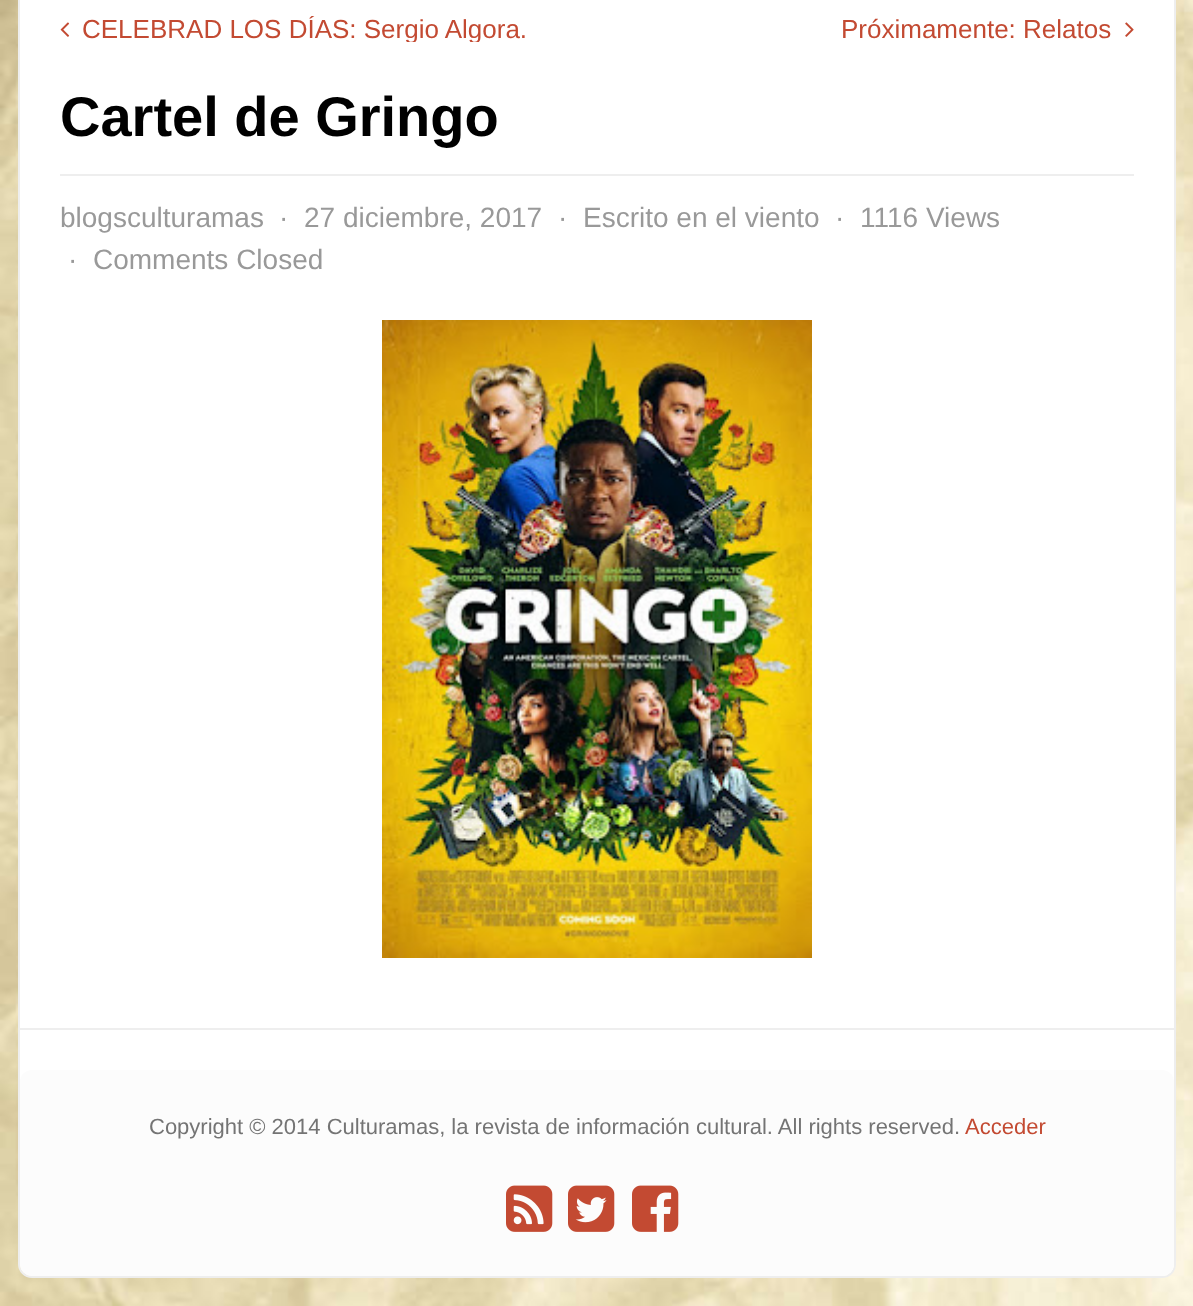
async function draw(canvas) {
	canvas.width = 1193;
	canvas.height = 1306;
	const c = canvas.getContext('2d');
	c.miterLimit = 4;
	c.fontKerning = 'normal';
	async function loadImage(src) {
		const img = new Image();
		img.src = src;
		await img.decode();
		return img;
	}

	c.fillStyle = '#fff';
	c.fillRect(0, 0, 1193, 1306);
	c.drawImage(await loadImage('img1.png'), 0, 0, 1193, 1306);
	c.beginPath();
	c.roundRect(19, -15, 1156, 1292, 13);
	c.strokeStyle = '#eee';
	c.lineWidth = 2;
	c.stroke();
	c.beginPath();
	c.roundRect(20, -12, 1154, 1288, 12);
	c.fill();
	c.drawImage(await loadImage('img2.png'), 60, 22, 10, 15);
	c.save();
	c.beginPath();
	c.rect(60, 16, 1074, 26);
	c.clip();
	c.font = '26px Liberation Sans';
	c.fillStyle = '#c34a32';
	c.fillText('CELEBRAD LOS DÍAS: Sergio Algora.', 82, 38);
	c.restore();
	c.font = '26px Liberation Sans';
	c.fillStyle = '#c34a32';
	c.fillText('Próximamente: Relatos', 841, 38);
	c.drawImage(await loadImage('img3.png'), 1125, 22, 9, 15);
	c.fillStyle = '#eee';
	c.fillRect(60, 174, 1074, 2);
	c.font = 'bold 56px Liberation Sans';
	c.fillStyle = '#000';
	c.fillText('Cartel de Gringo', 60, 136);
	c.font = '28px Liberation Sans';
	c.fillStyle = '#999';
	for (const [text, x, y] of [
		['blogsculturamas', 60, 227],
		['·', 279, 227],
		['27 diciembre, 2017', 304, 227],
		['·', 558, 227],
		['Escrito en el viento', 583, 227],
		['·', 835, 227],
		['1116 Views', 860, 227],
		['·', 68, 269],
		['Comments Closed', 93, 269],
	]) {
		c.fillText(text, x, y);
	}
	c.drawImage(await loadImage('img4.png'), 382, 320, 430, 638);
	c.fillStyle = '#eee';
	c.fillRect(20, 1028, 1154, 2);
	c.fillStyle = '#fcfcfc';
	c.beginPath();
	c.roundRect(20, 1070, 1154, 206, 12);
	c.fill();
	c.font = '22px Liberation Sans';
	c.fillStyle = '#747474';
	c.fillText('Copyright © 2014 Culturamas, la revista de información cultural. All rights reserved.', 149, 1134);
	c.fillStyle = '#c34a32';
	c.fillText('Acceder', 965, 1134);
	c.drawImage(await loadImage('img5.png'), 506, 1185, 47, 47);
	c.drawImage(await loadImage('img6.png'), 568, 1185, 47, 47);
	c.drawImage(await loadImage('img7.png'), 632, 1185, 47, 47);
}

draw(document.querySelector('canvas'));
